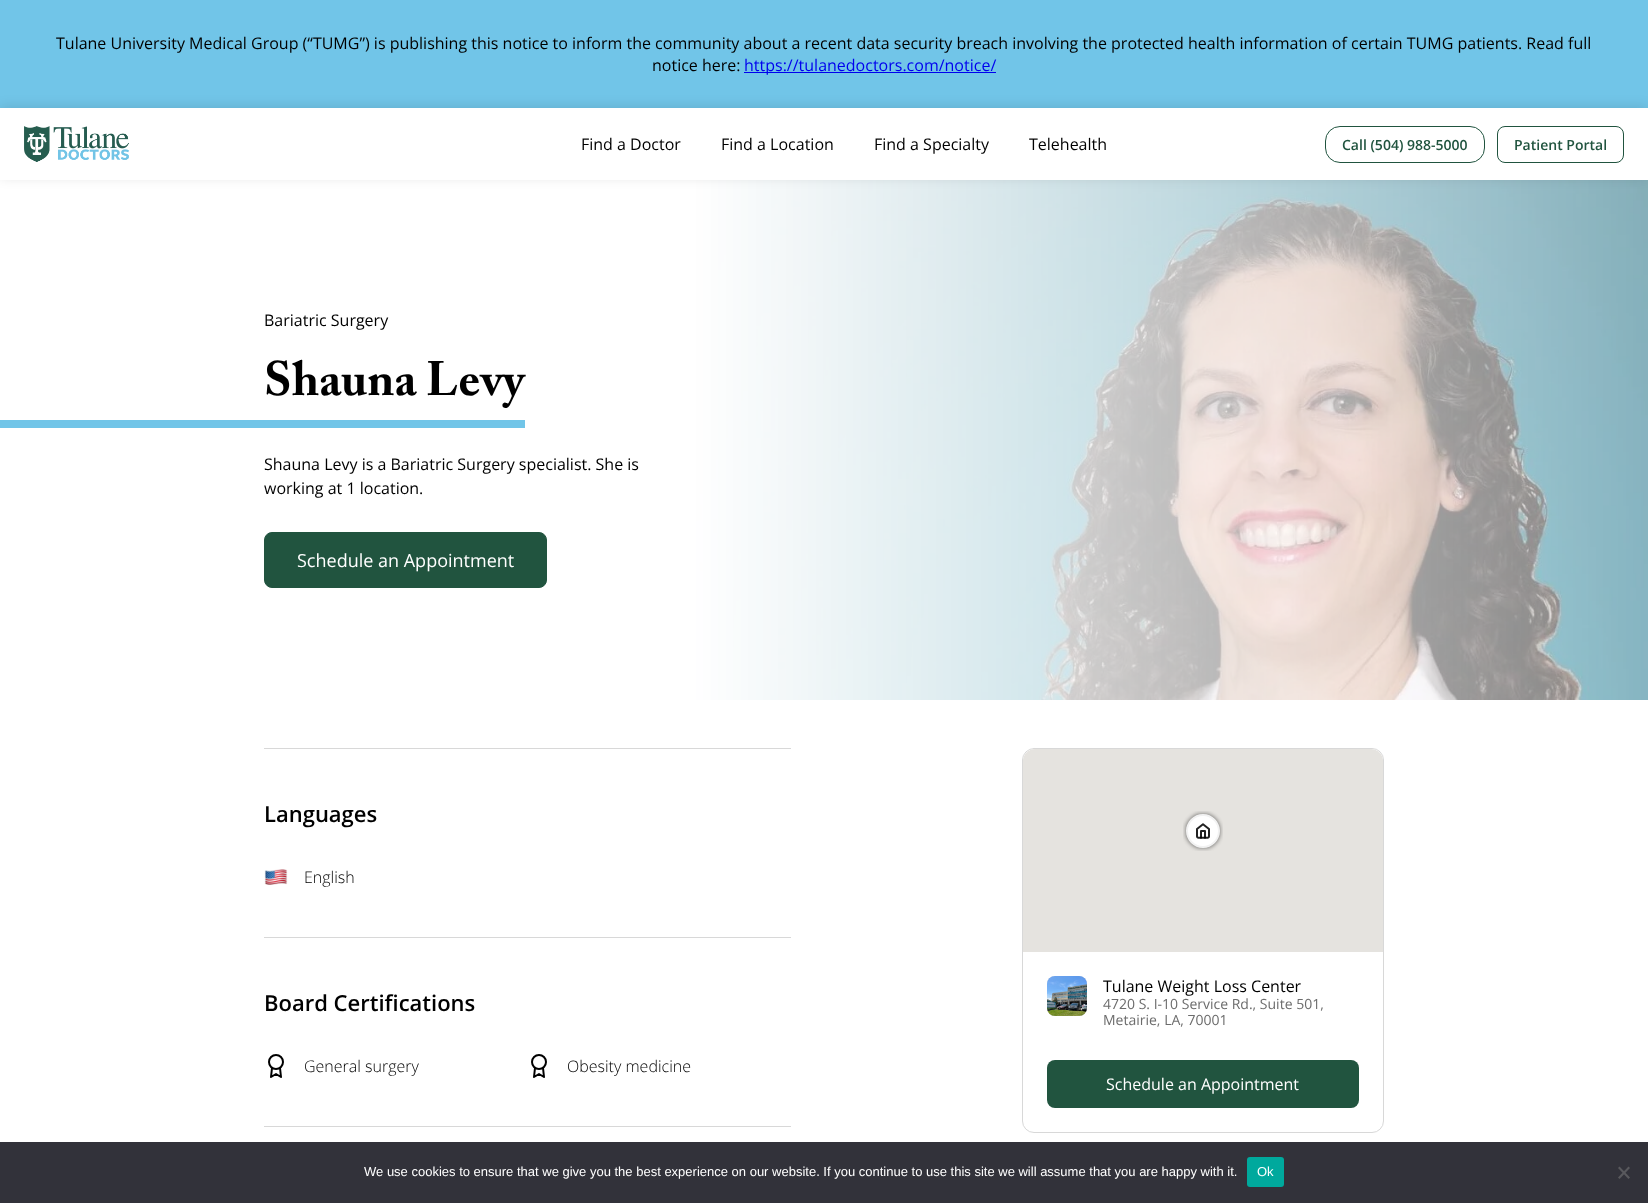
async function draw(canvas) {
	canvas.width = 1648;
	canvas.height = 1203;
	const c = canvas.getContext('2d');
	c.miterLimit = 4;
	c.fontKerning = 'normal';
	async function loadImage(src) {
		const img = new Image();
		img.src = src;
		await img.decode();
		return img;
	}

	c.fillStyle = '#fff';
	c.fillRect(0, 0, 1648, 1203);
	c.fillStyle = '#71c5e8';
	c.fillRect(0, 0, 1648, 108);
	c.font = '16px Open Sans';
	c.fillStyle = '#000';
	c.fillText('Tulane University Medical Group (“TUMG”) is publishing this notice to inform the community about a recent data security breach involving the protected health information of certain TUMG patients. Read full', 56, 49);
	c.fillText('notice here:', 652, 71);
	c.fillStyle = '#00e';
	c.fillRect(744, 72, 252, 1);
	c.fillText('https://tulanedoctors.com/notice/', 744, 71);
	c.drawImage(await loadImage('img2.png'), 692, 180, 956, 520);
	c.save();
	c.beginPath();
	c.moveTo(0, 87);
	c.lineTo(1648, 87);
	c.lineTo(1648, 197);
	c.lineTo(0, 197);
	c.closePath();
	c.moveTo(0, 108);
	c.lineTo(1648, 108);
	c.lineTo(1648, 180);
	c.lineTo(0, 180);
	c.closePath();
	c.clip('evenodd');
	c.fillStyle = '#0000001a';
	c.filter = 'blur(6px)';
	c.beginPath();
	c.rect(0, 106, 1648, 72);
	c.fill();
	c.filter = 'none';
	c.restore();
	c.drawImage(await loadImage('img1.png'), 24, 126, 105, 36);
	c.fillStyle = '#000';
	for (const [text, x, y] of [
		['Find a Doctor', 581, 150],
		['Find a Location', 721, 150],
		['Find a Specialty', 874, 150],
		['Telehealth', 1029, 150],
	]) {
		c.fillText(text, x, y);
	}
	c.beginPath();
	c.roundRect(1325.5, 126.5, 159, 36, 14.5);
	c.strokeStyle = '#21543f';
	c.stroke();
	c.font = '600 14px Open Sans';
	c.fillStyle = '#21543f';
	c.fillText('Call (504) 988-5000', 1342, 150);
	c.beginPath();
	c.roundRect(1497.5, 126.5, 126, 36, 7.5);
	c.stroke();
	c.fillText('Patient Portal', 1514, 150);
	c.font = '16px Open Sans';
	c.fillStyle = '#000';
	c.fillText('Bariatric Surgery', 264, 326);
	c.fillStyle = '#71c5e8';
	c.fillRect(0, 420, 525, 8);
	c.font = 'bold 48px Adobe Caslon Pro';
	c.fillStyle = '#000';
	c.fillText('Shauna Levy', 264, 395);
	c.font = '16px Open Sans';
	c.fillText('Shauna Levy is a Bariatric Surgery specialist. She is', 264, 470);
	c.fillText('working at 1 location.', 264, 494);
	c.fillStyle = '#21543f';
	c.beginPath();
	c.roundRect(264.5, 532.5, 282, 55, 7.5);
	c.fill();
	c.stroke();
	c.font = '18px Open Sans';
	c.fillStyle = '#fff';
	c.fillText('Schedule an Appointment', 297, 567);
	c.fillStyle = '#d8d8d8';
	c.fillRect(264, 748, 527, 1);
	c.font = '600 22px Open Sans';
	c.fillStyle = '#000';
	c.fillText('Languages', 264, 822);
	c.drawImage(await loadImage('img3.png'), 264, 869, 24, 16);
	c.font = '300 16px Open Sans';
	c.fillText('English', 304, 883);
	c.fillStyle = '#d8d8d8';
	c.fillRect(264, 937, 527, 1);
	c.font = '600 22px Open Sans';
	c.fillStyle = '#000';
	c.fillText('Board Certifications', 264, 1011);
	c.beginPath();
	c.arc(276, 1062, 7, 0, 2 * Math.PI);
	c.strokeStyle = '#000';
	c.lineWidth = 2;
	c.stroke();
	c.beginPath();
	c.moveTo(272, 1068);
	c.lineTo(271, 1077);
	c.lineTo(276, 1074);
	c.lineTo(281, 1077);
	c.lineTo(280, 1068);
	c.lineCap = 'round';
	c.lineJoin = 'round';
	c.stroke();
	c.font = '300 16px Open Sans';
	c.fillText('General surgery', 304, 1072);
	c.beginPath();
	c.arc(539, 1062, 7, 0, 2 * Math.PI);
	c.stroke();
	c.beginPath();
	c.moveTo(535, 1068);
	c.lineTo(534, 1077);
	c.lineTo(539, 1074);
	c.lineTo(544, 1077);
	c.lineTo(543, 1068);
	c.stroke();
	c.fillText('Obesity medicine', 567, 1072);
	c.fillStyle = '#d8d8d8';
	c.fillRect(264, 1126, 527, 1);
	c.beginPath();
	c.roundRect(1022.5, 748.5, 361, 384, 11.5);
	c.strokeStyle = '#d8d8d8';
	c.lineWidth = 1;
	c.lineJoin = 'miter';
	c.stroke();
	c.fillStyle = '#e5e3df';
	c.beginPath();
	c.roundRect(1023, 749, 360, 203, [12, 12, 0, 0]);
	c.fill();
	c.drawImage(await loadImage('img4.png'), 1183, 811, 40, 40);
	c.fillStyle = '#d8d8d8';
	c.beginPath();
	c.roundRect(1047, 976, 40, 40, 8);
	c.fill();
	c.drawImage(await loadImage('img5.png'), 1047, 976, 40, 40);
	c.font = '16px Open Sans';
	c.fillStyle = '#000';
	c.fillText('Tulane Weight Loss Center', 1103, 992);
	c.font = '14px Open Sans';
	c.fillStyle = '#6c6c6c';
	c.fillText('4720 S. I-10 Service Rd., Suite 501,', 1103, 1009);
	c.fillText('Metairie, LA, 70001', 1103, 1025);
	c.fillStyle = '#21543f';
	c.beginPath();
	c.roundRect(1047, 1060, 312, 48, 8);
	c.fill();
	c.font = '16px Open Sans';
	c.fillStyle = '#fff';
	c.fillText('Schedule an Appointment', 1106, 1090);
	c.fillStyle = '#32323a';
	c.fillRect(0, 1142, 1648, 61);
	c.font = '13px Liberation Sans';
	c.fillStyle = '#fff';
	c.fillText('We use cookies to ensure that we give you the best experience on our website. If you continue to use this site we will assume that you are happy with it.', 364, 1176);
	c.fillStyle = '#00a99d';
	c.beginPath();
	c.roundRect(1247, 1157, 37, 30, 3);
	c.fill();
	c.fillStyle = '#fff';
	c.fillText('Ok', 1257, 1176);
	c.fillStyle = '#59595d';
	c.beginPath();
	c.moveTo(1628.5, 1166.5);
	c.lineTo(1630, 1168);
	c.lineTo(1619.5, 1179);
	c.lineTo(1618, 1177.5);
	c.closePath();
	c.fill();
	c.beginPath();
	c.moveTo(1618, 1168);
	c.lineTo(1619.5, 1166.5);
	c.lineTo(1630, 1177.5);
	c.lineTo(1628.5, 1179);
	c.closePath();
	c.fill();
}

draw(document.querySelector('canvas'));
